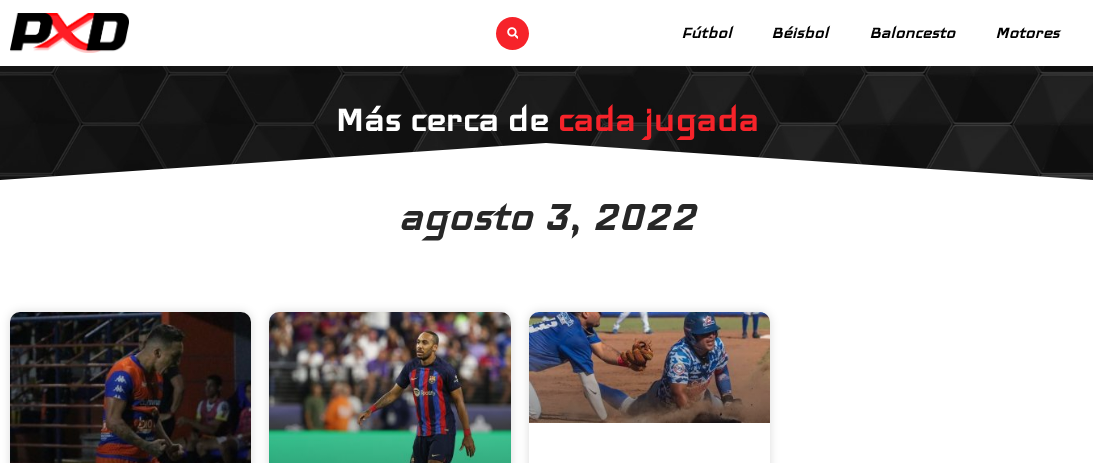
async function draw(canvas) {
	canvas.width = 1093;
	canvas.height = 463;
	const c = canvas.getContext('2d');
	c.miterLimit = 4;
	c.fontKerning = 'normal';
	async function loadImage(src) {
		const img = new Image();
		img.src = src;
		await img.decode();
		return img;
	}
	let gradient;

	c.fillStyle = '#fff';
	c.fillRect(0, 0, 1093, 463);
	c.drawImage(await loadImage('img1.png'), 10, 13, 119, 40);
	c.fillStyle = '#f6232a';
	c.beginPath();
	c.arc(512.5, 33.5, 16.5, 0, 2 * Math.PI);
	c.fill();
	c.drawImage(await loadImage('img2.png'), 507, 27, 11, 12);
	c.font = 'italic bold 20px Iceland';
	c.fillStyle = '#000';
	for (const [text, x, y] of [
		['Fútbol', 681, 38],
		['Béisbol', 771, 38],
		['Baloncesto', 869, 38],
		['Motores', 995, 38],
	]) {
		c.fillText(text, x, y);
	}
	c.drawImage(await loadImage('img3.png'), 0, 66, 1093, 114);
	c.font = 'bold 43px Iceland';
	c.fillStyle = '#fff';
	c.fillText('Más cerca de', 335, 131);
	c.fillStyle = '#f6232a';
	c.fillText('cada jugada', 557, 131);
	c.fillStyle = '#fff';
	c.beginPath();
	c.moveTo(546, 143);
	c.lineTo(1093, 180);
	c.lineTo(1093, 182);
	c.lineTo(-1, 182);
	c.lineTo(-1, 180);
	c.closePath();
	c.fill();
	c.font = 'italic bold 50px Iceland';
	c.fillStyle = '#272727';
	c.fillText('agosto 3, 2022', 398, 230);
	c.fillStyle = '#00000026';
	c.filter = 'blur(5px)';
	c.beginPath();
	c.roundRect(10, 312, 241, 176, 10);
	c.fill();
	c.filter = 'none';
	c.fillStyle = '#fff';
	c.beginPath();
	c.roundRect(10, 312, 241, 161, 10);
	c.fill();
	c.drawImage(await loadImage('img4.png'), 10, 312, 241, 151);
	gradient = c.createLinearGradient(131, 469, 131, 312);
	gradient.addColorStop(0, '#00000059');
	gradient.addColorStop(0.75, '#00000000');
	c.fillStyle = gradient;
	c.fillRect(10, 359, 241, 104);
	c.fillStyle = '#00000026';
	c.filter = 'blur(5px)';
	c.beginPath();
	c.roundRect(269, 312, 242, 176, 10);
	c.fill();
	c.filter = 'none';
	c.fillStyle = '#fff';
	c.beginPath();
	c.roundRect(269, 312, 242, 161, 10);
	c.fill();
	c.drawImage(await loadImage('img5.png'), 269, 312, 242, 151);
	gradient = c.createLinearGradient(390, 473, 390, 312);
	gradient.addColorStop(0, '#00000059');
	gradient.addColorStop(0.75, '#00000000');
	c.fillStyle = gradient;
	c.fillRect(269, 360, 242, 103);
	c.fillStyle = '#00000026';
	c.filter = 'blur(5px)';
	c.beginPath();
	c.roundRect(529, 312, 241, 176, 10);
	c.fill();
	c.filter = 'none';
	c.fillStyle = '#fff';
	c.beginPath();
	c.roundRect(529, 312, 241, 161, 10);
	c.fill();
	c.drawImage(await loadImage('img6.png'), 529, 312, 241, 111);
	gradient = c.createLinearGradient(650, 423, 650, 312);
	gradient.addColorStop(0, '#00000059');
	gradient.addColorStop(0.75, '#00000000');
	c.fillStyle = gradient;
	c.fillRect(529, 345, 241, 78);
}

draw(document.querySelector('canvas'));
